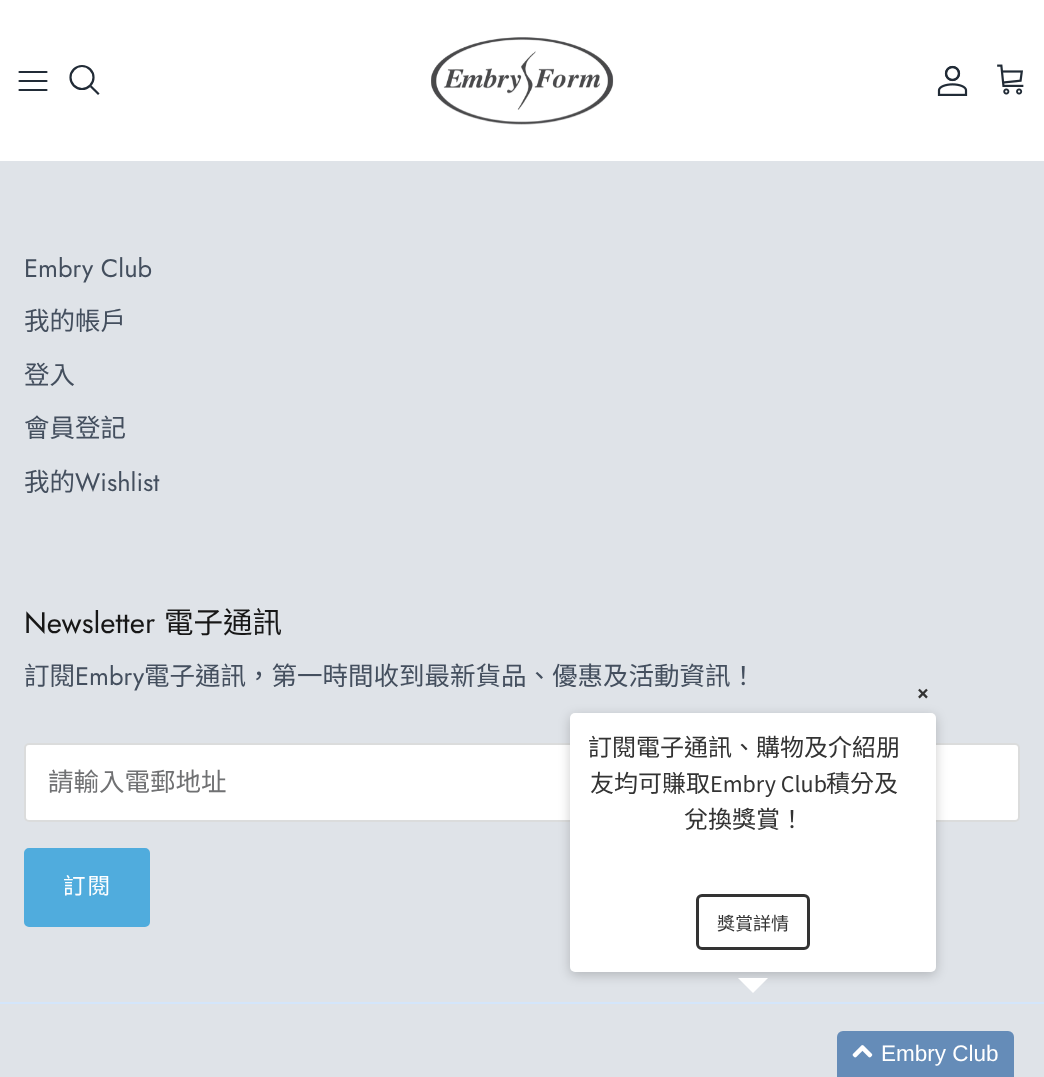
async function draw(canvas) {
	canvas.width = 1044;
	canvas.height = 1077;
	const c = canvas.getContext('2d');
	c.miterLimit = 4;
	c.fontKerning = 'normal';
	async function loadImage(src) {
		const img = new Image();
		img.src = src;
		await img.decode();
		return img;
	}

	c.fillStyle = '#dfe3e8';
	c.fillRect(0, 0, 1044, 1077);
	c.fillStyle = '#fff';
	c.fillRect(0, 0, 1044, 161);
	c.beginPath();
	c.moveTo(19.5, 81);
	c.lineTo(46.5, 81);
	c.moveTo(19.5, 72);
	c.lineTo(46.5, 72);
	c.moveTo(19.5, 90);
	c.lineTo(46.5, 90);
	c.strokeStyle = '#212b36';
	c.lineWidth = 2.2;
	c.lineCap = 'round';
	c.lineJoin = 'round';
	c.stroke();
	c.beginPath();
	c.arc(82, 77.5, 11.5, 0, 2 * Math.PI);
	c.stroke();
	c.beginPath();
	c.moveTo(91.5, 87);
	c.lineTo(98, 93.5);
	c.lineCap = 'square';
	c.lineJoin = 'miter';
	c.stroke();
	c.drawImage(await loadImage('img1.png'), 431, 37, 183, 88);
	c.drawImage(await loadImage('img2.png'), 937, 65, 31, 31);
	c.drawImage(await loadImage('img3.png'), 997, 64, 27, 31);
	c.font = '25.5px Jost';
	c.fillStyle = '#444f5e';
	c.fillText('Embry Club', 24, 277);
	c.font = '25.5px Noto Sans CJK TC';
	for (const [text, x, y] of [
		['我的帳戶', 24, 330],
		['登入', 24, 384],
		['會員登記', 24, 437],
		['我的', 24, 491],
	]) {
		c.fillText(text, x, y);
	}
	c.font = '25.5px Jost';
	c.fillText('Wishlist', 75, 491);
	c.font = '29.5px Jost';
	c.fillStyle = '#171717';
	c.fillText('Newsletter', 24, 633);
	c.font = '29.5px Noto Sans CJK TC';
	c.fillText('電子通訊', 164, 633);
	c.font = '25.5px Noto Sans CJK TC';
	c.fillStyle = '#444f5e';
	c.fillText('訂閱', 24, 685);
	c.font = '25.5px Jost';
	c.fillText('Embry', 75, 685);
	c.font = '25.5px Noto Sans CJK TC';
	c.fillText('電子通訊，第一時間收到最新貨品、優惠及活動資訊！', 144, 685);
	c.fillStyle = '#fff';
	c.beginPath();
	c.roundRect(25, 744, 994, 77, 4);
	c.fill();
	c.strokeStyle = '#dbdcdc';
	c.lineWidth = 2;
	c.stroke();
	c.fillStyle = '#707173';
	c.fillText('請輸入電郵地址', 48, 791);
	c.fillStyle = '#50acdd';
	c.beginPath();
	c.roundRect(25, 849, 124, 77, 4);
	c.fill();
	c.strokeStyle = '#50acdd';
	c.stroke();
	c.letterSpacing = '2px';
	c.font = '22.5px Noto Sans CJK TC';
	c.fillStyle = '#fff';
	c.fillText('訂閱', 63, 894);
	c.fillStyle = '#d4e6fb';
	c.fillRect(0, 1002, 1044, 2);
	c.letterSpacing = '0px';
	c.font = 'bold 22.5px Source Sans Pro';
	c.fillStyle = '#333';
	c.fillText('×', 917, 701);
	c.fillStyle = '#00000033';
	c.filter = 'blur(6px)';
	c.beginPath();
	c.roundRect(570, 716, 366, 259, 5);
	c.fill();
	c.filter = 'none';
	c.fillStyle = '#fff';
	c.beginPath();
	c.roundRect(570, 713, 366, 259, 5);
	c.fill();
	c.font = '24px Noto Sans CJK TC';
	c.fillStyle = '#333';
	c.fillText('訂閱電子通訊、購物及介紹朋', 588, 756);
	c.fillText('友均可賺取', 590, 792);
	c.font = '24px Source Sans Pro';
	c.fillText('Embry Club', 710, 792);
	c.font = '24px Noto Sans CJK TC';
	c.fillText('積分及', 826, 792);
	c.fillText('兌換獎賞！', 684, 828);
	c.beginPath();
	c.roundRect(697.5, 895.5, 111, 53, 4.5);
	c.strokeStyle = '#333';
	c.lineWidth = 3;
	c.stroke();
	c.font = '18px Noto Sans CJK TC';
	c.fillText('獎賞詳情', 717, 930);
	c.fillStyle = '#fff';
	c.beginPath();
	c.moveTo(738, 978);
	c.lineTo(768, 978);
	c.lineTo(753, 993);
	c.closePath();
	c.fill();
	c.fillStyle = '#658cb8';
	c.beginPath();
	c.roundRect(837, 1031, 177, 46, [6, 6, 0, 0]);
	c.fill();
	c.drawImage(await loadImage('img4.png'), 852, 1045, 21, 13);
	c.font = '22.5px Liberation Sans';
	c.fillStyle = '#fff';
	c.fillText('Embry Club', 881, 1061);
}

draw(document.querySelector('canvas'));
